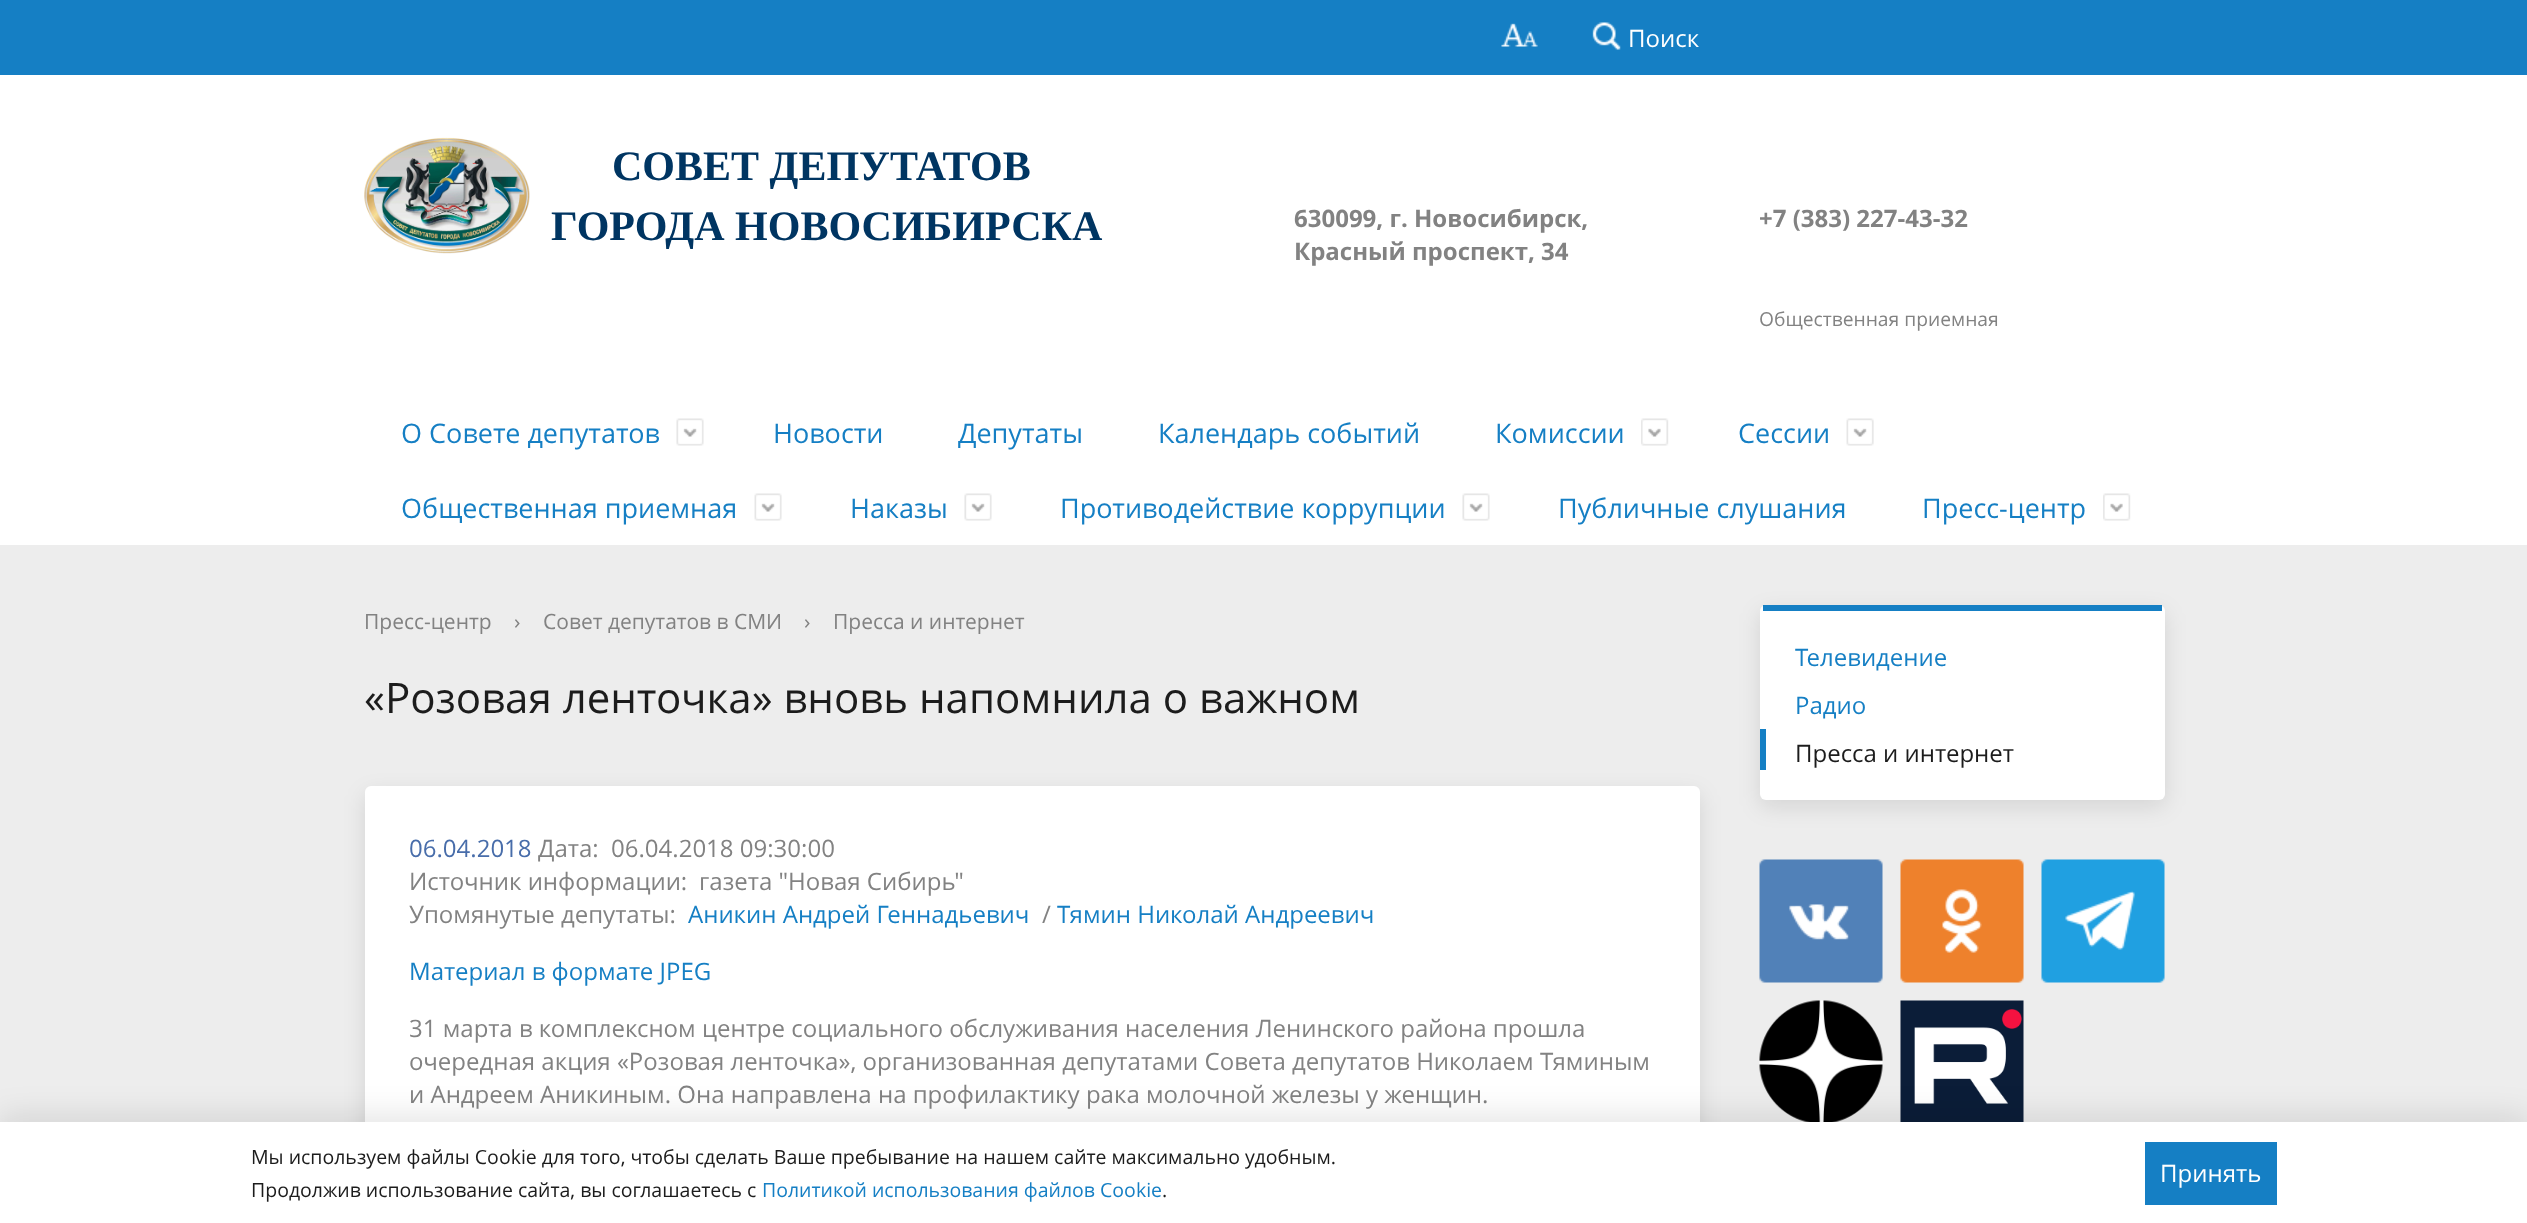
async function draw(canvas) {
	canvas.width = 2527;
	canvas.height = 1223;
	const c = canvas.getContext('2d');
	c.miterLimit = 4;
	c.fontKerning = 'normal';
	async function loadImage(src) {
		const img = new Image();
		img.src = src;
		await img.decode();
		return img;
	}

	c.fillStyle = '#ededed';
	c.fillRect(0, 0, 2527, 1223);
	c.fillStyle = '#157fc4';
	c.fillRect(0, 0, 2527, 75);
	c.drawImage(await loadImage('img1.png'), 1501, 23, 37, 24);
	c.drawImage(await loadImage('img2.png'), 1592, 22, 29, 28);
	c.font = '24px Open Sans';
	c.fillStyle = '#fff';
	c.fillText('Поиск', 1628, 47);
	c.fillRect(0, 75, 2527, 470);
	c.drawImage(await loadImage('img3.png'), 364, 137, 166, 117);
	c.font = 'bold 42px Liberation Serif';
	c.fillStyle = '#003562';
	c.fillText('СОВЕТ ДЕПУТАТОВ', 612, 180);
	c.fillText('ГОРОДА НОВОСИБИРСКА', 551, 240);
	c.font = 'bold 24px Open Sans';
	c.fillStyle = '#828282';
	for (const [text, x, y] of [
		['630099, г. Новосибирск,', 1294, 227],
		['Красный проспект, 34', 1294, 260],
		['+7 (383) 227-43-32', 1759, 227],
	]) {
		c.fillText(text, x, y);
	}
	c.font = '19.25px Open Sans';
	c.fillText('Общественная приемная', 1759, 326);
	c.font = '27px Open Sans';
	c.fillStyle = '#157fc4';
	c.fillText('О Совете депутатов', 401, 443);
	c.drawImage(await loadImage('img4.png'), 676, 418, 28, 28);
	for (const [text, x, y] of [
		['Новости', 773, 443],
		['Депутаты', 958, 443],
		['Календарь событий', 1158, 443],
		['Комиссии', 1495, 443],
	]) {
		c.fillText(text, x, y);
	}
	c.drawImage(await loadImage('img5.png'), 1641, 418, 28, 28);
	c.fillText('Сессии', 1738, 443);
	c.drawImage(await loadImage('img6.png'), 1846, 418, 28, 28);
	c.fillText('Общественная приемная', 401, 518);
	c.drawImage(await loadImage('img7.png'), 754, 493, 28, 28);
	c.fillText('Наказы', 850, 518);
	c.drawImage(await loadImage('img4.png'), 964, 493, 28, 28);
	c.fillText('Противодействие коррупции', 1060, 518);
	c.drawImage(await loadImage('img4.png'), 1462, 493, 28, 28);
	c.fillText('Публичные слушания', 1558, 518);
	c.fillText('Пресс-центр', 1922, 518);
	c.drawImage(await loadImage('img8.png'), 2103, 493, 28, 28);
	c.font = '21px Open Sans';
	c.fillStyle = '#828282';
	for (const [text, x, y] of [
		['Пресс-центр', 364, 629],
		['›', 514, 629],
		['Совет депутатов в СМИ', 543, 629],
		['›', 804, 629],
		['Пресса и интернет', 833, 629],
	]) {
		c.fillText(text, x, y);
	}
	c.font = '42px Open Sans';
	c.fillStyle = '#1c1c1c';
	c.fillText('«Розовая ленточка» вновь напомнила о важном', 364, 713);
	c.fillStyle = '#0000001a';
	c.filter = 'blur(11px)';
	c.beginPath();
	c.roundRect(365, 794, 1335, 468, 6);
	c.fill();
	c.filter = 'none';
	c.fillStyle = '#fff';
	c.beginPath();
	c.roundRect(365, 786, 1335, 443, 6);
	c.fill();
	c.font = '24px Open Sans';
	c.fillStyle = '#486daa';
	c.fillText('06.04.2018', 409, 857);
	c.fillStyle = '#828282';
	for (const [text, x, y] of [
		['Дата:', 538, 857],
		['06.04.2018 09:30:00', 611, 857],
		['Источник информации:', 409, 890],
		['газета "Новая Сибирь"', 699, 890],
		['Упомянутые депутаты:', 409, 923],
	]) {
		c.fillText(text, x, y);
	}
	c.fillStyle = '#157fc4';
	c.fillText('Аникин Андрей Геннадьевич', 688, 923);
	c.fillStyle = '#828282';
	c.fillText('/', 1042, 923);
	c.fillStyle = '#157fc4';
	c.fillText('Тямин Николай Андреевич', 1057, 923);
	c.fillText('Материал в формате JPEG', 409, 980);
	c.fillStyle = '#828282';
	for (const [text, x, y] of [
		['31 марта в комплексном центре социального обслуживания населения Ленинского района прошла', 409, 1037],
		['очередная акция «Розовая ленточка», организованная депутатами Совета депутатов Николаем Тяминым', 409, 1070],
		['и Андреем Аникиным. Она направлена на профилактику рака молочной железы у женщин.', 409, 1103],
	]) {
		c.fillText(text, x, y);
	}
	c.fillStyle = '#0000001a';
	c.filter = 'blur(11px)';
	c.beginPath();
	c.roundRect(1760, 612, 405, 195, 6);
	c.fill();
	c.filter = 'none';
	c.fillStyle = '#fff';
	c.beginPath();
	c.roundRect(1760, 605, 405, 195, 6);
	c.fill();
	c.fillStyle = '#157fc4';
	c.fillRect(1763, 605, 399, 6);
	c.fillText('Телевидение', 1795, 666);
	c.fillText('Радио', 1795, 714);
	c.fillRect(1760, 729, 6, 41);
	c.fillStyle = '#1c1c1c';
	c.fillText('Пресса и интернет', 1795, 762);
	c.drawImage(await loadImage('img9.png'), 1759, 859, 124, 124);
	c.drawImage(await loadImage('img10.png'), 1900, 859, 124, 124);
	c.drawImage(await loadImage('img11.png'), 2041, 859, 124, 124);
	c.drawImage(await loadImage('img12.png'), 1759, 1000, 124, 122);
	c.drawImage(await loadImage('img13.png'), 1900, 1000, 124, 122);
	c.fillStyle = '#0000001a';
	c.filter = 'blur(15px)';
	c.beginPath();
	c.rect(0, 1115, 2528, 102);
	c.fill();
	c.filter = 'none';
	c.fillStyle = '#fff';
	c.fillRect(0, 1122, 2527, 101);
	c.font = '19.5px Open Sans';
	c.fillStyle = '#1c1c1c';
	c.fillText('Мы используем файлы Cookie для того, чтобы сделать Ваше пребывание на нашем сайте максимально удобным.', 251, 1164);
	c.fillText('Продолжив использование сайта, вы соглашаетесь с', 251, 1197);
	c.fillStyle = '#157fc4';
	c.fillText('Политикой использования файлов Cookie', 762, 1197);
	c.fillStyle = '#1c1c1c';
	c.fillText('.', 1162, 1197);
	c.fillStyle = '#157fc4';
	c.fillRect(2145, 1142, 132, 63);
	c.font = '24px Open Sans';
	c.fillStyle = '#fff';
	c.fillText('Принять', 2160, 1182);
}

draw(document.querySelector('canvas'));
